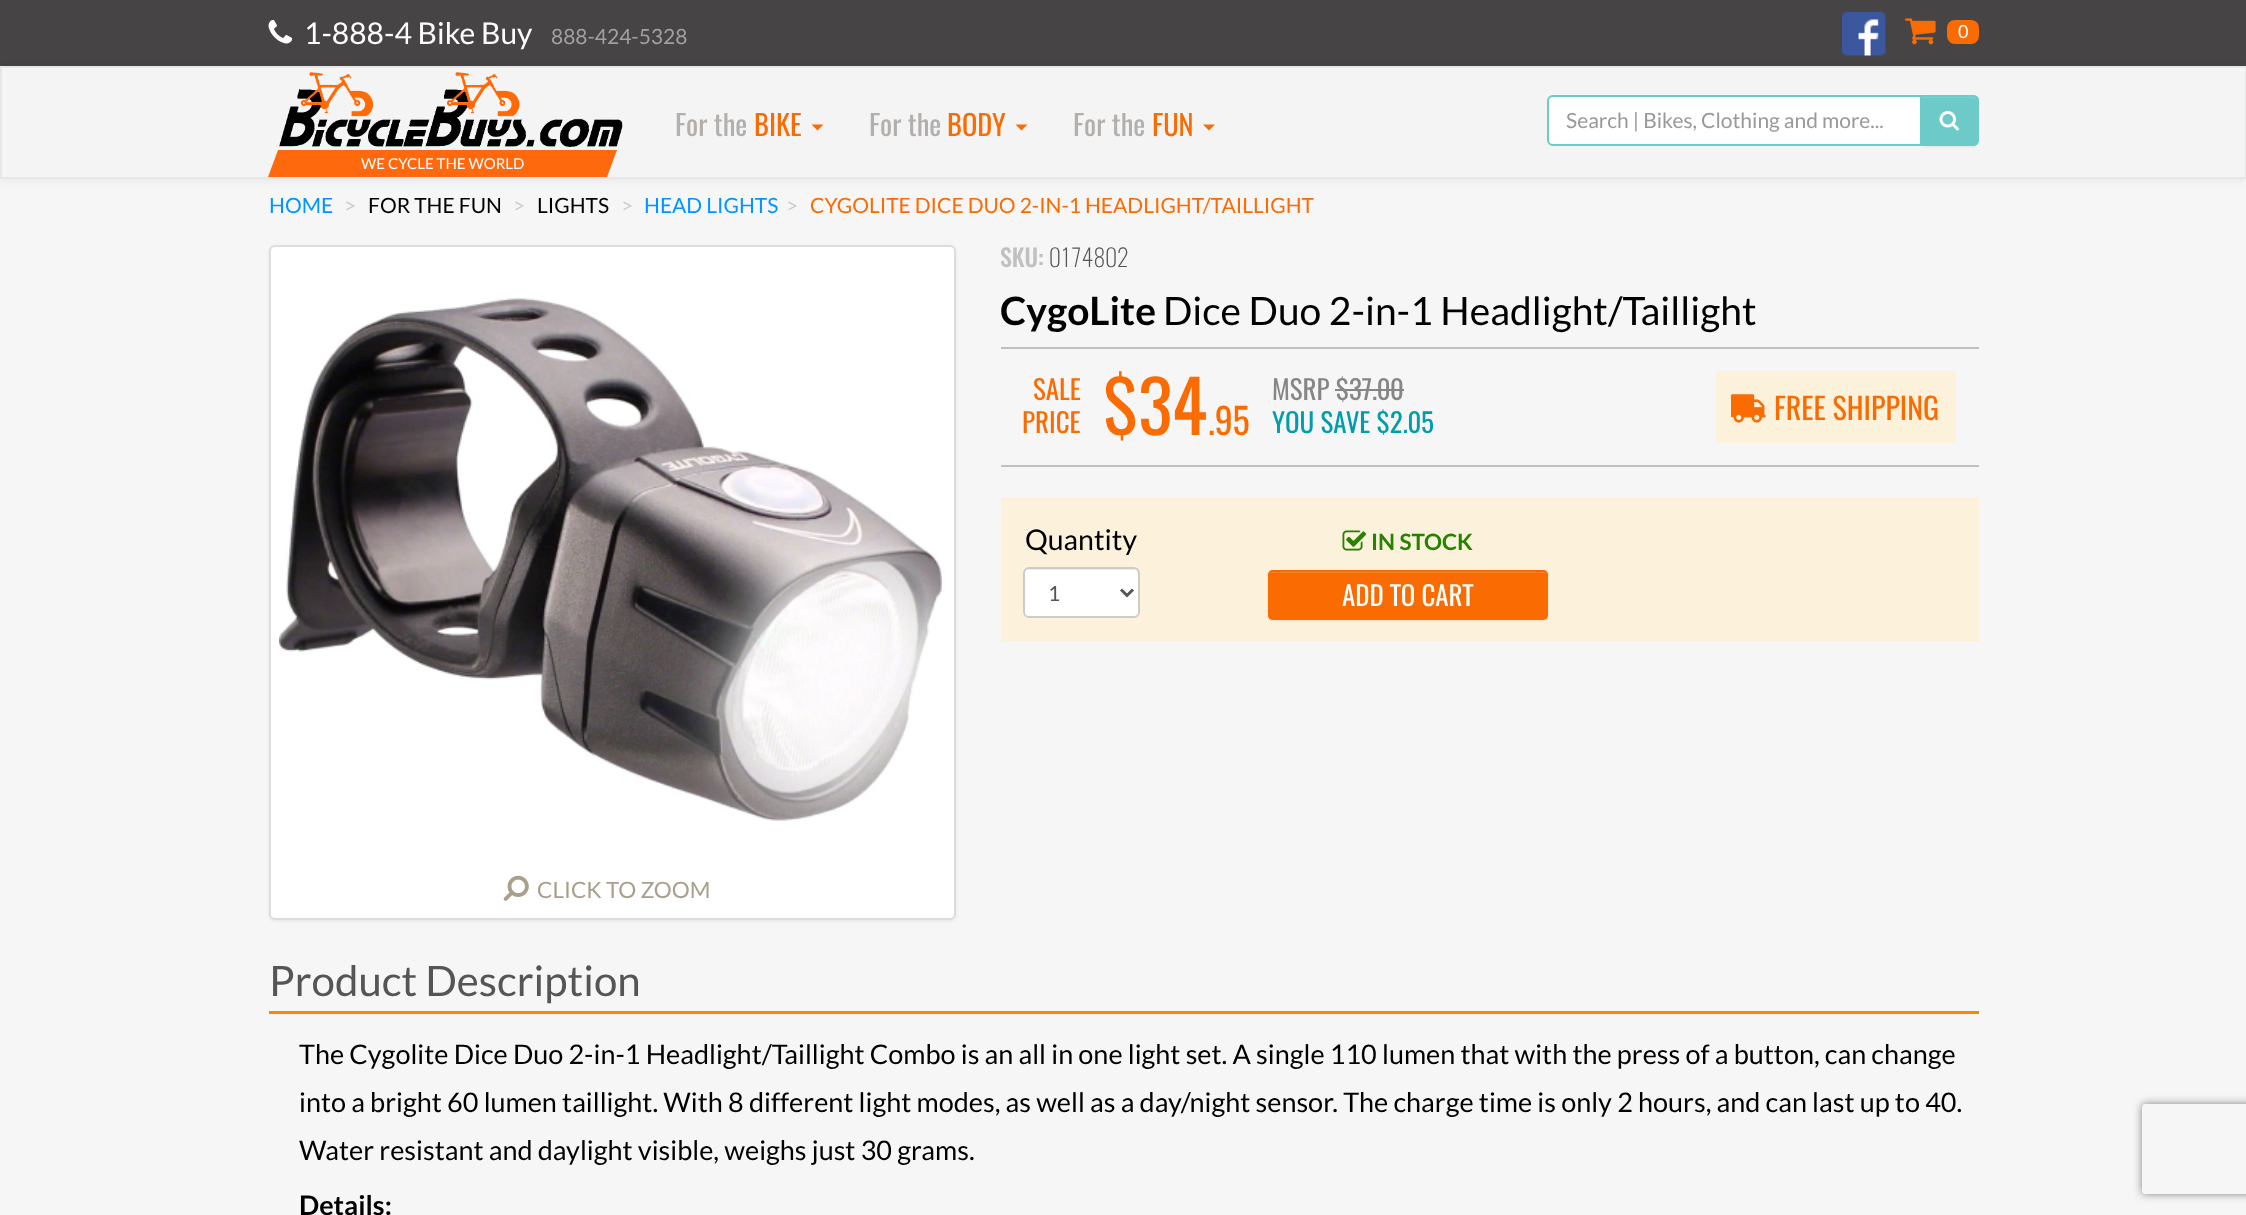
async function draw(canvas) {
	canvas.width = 2246;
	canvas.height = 1215;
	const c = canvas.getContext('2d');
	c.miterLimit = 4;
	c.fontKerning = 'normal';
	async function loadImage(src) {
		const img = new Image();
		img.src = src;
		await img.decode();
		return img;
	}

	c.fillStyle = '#f6f6f6';
	c.fillRect(0, 0, 2246, 1215);
	c.fillStyle = '#464445';
	c.fillRect(0, 0, 2246, 66);
	c.drawImage(await loadImage('img1.png'), 268, 19, 25, 25);
	c.font = '30px Lato';
	c.fillStyle = '#fff';
	c.fillText('1-888-4 Bike Buy', 304, 44);
	c.font = '21px Lato';
	c.fillStyle = '#a59fa2';
	c.fillText('888-424-5328', 551, 44);
	c.drawImage(await loadImage('img2.png'), 1842, 12, 44, 44);
	c.drawImage(await loadImage('img3.png'), 1905, 18, 31, 27);
	c.fillStyle = '#fa6b02';
	c.beginPath();
	c.roundRect(1947, 20, 32, 24, 8);
	c.fill();
	c.font = '18px Lato';
	c.fillStyle = '#fff';
	c.fillText('0', 1958, 38);
	c.fillStyle = '#00000012';
	c.filter = 'blur(4px)';
	c.beginPath();
	c.rect(0, 68, 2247, 112);
	c.fill();
	c.filter = 'none';
	c.fillStyle = '#f4f4f4';
	c.fillRect(2, 70, 2243, 107);
	c.fillStyle = '#f6f6f6';
	c.fillRect(2, 68, 2244, 2);
	c.strokeStyle = '#e7e7e7';
	c.lineWidth = 2;
	c.strokeRect(1, 67, 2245, 111);
	c.font = '28.5px Oswald';
	c.fillStyle = '#b3afad';
	c.fillText('For the', 675, 136);
	c.fillStyle = '#fa6b02';
	c.fillText('BIKE', 754, 136);
	c.beginPath();
	c.moveTo(811.5, 124.5);
	c.lineTo(823.5, 124.5);
	c.lineTo(817.5, 130.5);
	c.closePath();
	c.fill();
	c.fillStyle = '#b3afad';
	c.fillText('For the', 869, 136);
	c.fillStyle = '#fa6b02';
	c.fillText('BODY', 947, 136);
	c.beginPath();
	c.moveTo(1015.5, 124.5);
	c.lineTo(1027.5, 124.5);
	c.lineTo(1021.5, 130.5);
	c.closePath();
	c.fill();
	c.fillStyle = '#b3afad';
	c.fillText('For the', 1073, 136);
	c.fillStyle = '#fa6b02';
	c.fillText('FUN', 1152, 136);
	c.beginPath();
	c.moveTo(1203, 124.5);
	c.lineTo(1215, 124.5);
	c.lineTo(1209, 130.5);
	c.closePath();
	c.fill();
	c.fillStyle = '#00000012';
	c.filter = 'blur(1px)';
	c.beginPath();
	c.roundRect(1920, 96, 59, 51, 6);
	c.fill();
	c.filter = 'none';
	c.fillStyle = '#6ccac9';
	c.beginPath();
	c.roundRect(1920, 95, 59, 51, [0, 6, 6, 0]);
	c.fill();
	c.fillStyle = '#82d2d1';
	c.beginPath();
	c.moveTo(1922, 98);
	c.lineTo(1972, 98);
	c.bezierCurveTo(1975, 98, 1977, 100, 1977, 102);
	c.lineTo(1977, 101);
	c.bezierCurveTo(1977, 98, 1975, 96, 1972, 96);
	c.lineTo(1922, 96);
	c.closePath();
	c.fill();
	c.beginPath();
	c.roundRect(1921, 96, 57, 49, [0, 5, 5, 0]);
	c.strokeStyle = '#6ccac9';
	c.stroke();
	c.fillStyle = '#fff';
	c.beginPath();
	c.roundRect(1548, 96, 373, 49, [5, 0, 0, 5]);
	c.fill();
	c.stroke();
	c.font = '21px Lato';
	c.fillStyle = '#999';
	c.fillText('Search | Bikes, Clothing and more...', 1566, 128);
	c.drawImage(await loadImage('img4.png'), 1939, 111, 20, 20);
	c.drawImage(await loadImage('img5.png'), 279, 72, 344, 75);
	c.fillStyle = '#ff690e';
	c.beginPath();
	c.moveTo(278, 150);
	c.lineTo(617, 150);
	c.lineTo(607, 177);
	c.lineTo(268, 177);
	c.closePath();
	c.fill();
	c.font = '15px Lato';
	c.fillStyle = '#fff';
	c.fillText('WE CYCLE THE WORLD', 361, 169);
	c.font = '21px Lato';
	c.fillStyle = '#0096ff';
	c.fillText('HOME', 269, 213);
	c.fillStyle = '#ccc';
	c.fillText('>', 344, 213);
	c.fillStyle = '#000';
	c.fillText('FOR THE FUN', 368, 213);
	c.fillStyle = '#ccc';
	c.fillText('>', 513, 213);
	c.fillStyle = '#000';
	c.fillText('LIGHTS', 537, 213);
	c.fillStyle = '#ccc';
	c.fillText('>', 621, 213);
	c.fillStyle = '#0096ff';
	c.fillText('HEAD LIGHTS', 644, 213);
	c.fillStyle = '#ccc';
	c.fillText('>', 786, 213);
	c.fillStyle = '#fa6b02';
	c.fillText('CYGOLITE DICE DUO 2-IN-1 HEADLIGHT/TAILLIGHT', 810, 213);
	c.font = '500 24px Oswald';
	c.fillStyle = '#c0c0c0';
	c.fillText('SKU:', 1000, 267);
	c.font = '200 24px Oswald';
	c.fillStyle = '#555';
	c.fillText('0174802', 1049, 267);
	c.font = 'bold 39px Lato';
	c.fillStyle = '#000';
	c.fillText('CygoLite', 1000, 325);
	c.font = '39px Lato';
	c.fillText('Dice Duo 2-in-1 Headlight/Taillight', 1163, 325);
	c.fillStyle = '#c0c0c0';
	c.fillRect(1001, 347, 978, 2);
	c.fillRect(1001, 465, 978, 2);
	c.font = '27px Oswald';
	c.fillStyle = '#fa6b02';
	c.fillText('SALE', 1033, 400);
	c.fillText('PRICE', 1022, 433);
	c.font = '72px Oswald';
	c.fillText('$34', 1103, 435);
	c.font = '36px Oswald';
	c.fillText('.95', 1208, 435);
	c.font = '27px Oswald';
	c.fillStyle = '#868686';
	c.fillText('MSRP $37.00', 1272, 400);
	c.fillRect(1335, 389, 69, 2);
	c.fillStyle = '#009dad';
	c.fillText('YOU SAVE $2.05', 1272, 433);
	c.fillStyle = '#fcf2dc';
	c.fillRect(1716, 371, 240, 72);
	c.drawImage(await loadImage('img6.png'), 1731, 394, 35, 29);
	c.font = '30px Oswald';
	c.fillStyle = '#fa6b02';
	c.fillText('FREE SHIPPING', 1774, 420);
	c.fillStyle = '#fcf2dc';
	c.fillRect(1001, 497, 978, 145);
	c.font = '28.5px Lato';
	c.fillStyle = '#000';
	c.fillText('Quantity', 1025, 550);
	c.fillStyle = '#fff';
	c.beginPath();
	c.roundRect(1023, 567, 117, 51, 6);
	c.fill();
	c.fillStyle = '#ececec';
	c.beginPath();
	c.moveTo(1029, 570);
	c.lineTo(1134, 570);
	c.bezierCurveTo(1139, 570, 1138, 578, 1138, 581);
	c.lineTo(1138, 615);
	c.bezierCurveTo(1139, 614, 1139, 613, 1139, 612);
	c.lineTo(1139, 574);
	c.bezierCurveTo(1139, 571, 1137, 569, 1134, 569);
	c.lineTo(1030, 569);
	c.bezierCurveTo(1028, 569, 1027, 570, 1026, 571);
	c.closePath();
	c.fill();
	c.beginPath();
	c.roundRect(1024, 568, 115, 49, 5);
	c.strokeStyle = '#ccc';
	c.stroke();
	c.beginPath();
	c.moveTo(1121, 589.5);
	c.lineTo(1127, 595.5);
	c.lineTo(1133, 589.5);
	c.strokeStyle = '#555';
	c.lineWidth = 3;
	c.stroke();
	c.font = '21px Lato';
	c.fillStyle = '#555';
	c.fillText('1', 1048, 601);
	c.drawImage(await loadImage('img7.png'), 1342, 530, 25, 21);
	c.font = 'bold 22.5px Lato';
	c.fillStyle = '#258300';
	c.fillText('IN STOCK', 1371, 550);
	c.fillStyle = '#00000012';
	c.filter = 'blur(1px)';
	c.beginPath();
	c.roundRect(1268, 572, 280, 49, 5);
	c.fill();
	c.filter = 'none';
	c.fillStyle = '#fa6b02';
	c.beginPath();
	c.roundRect(1268, 570, 280, 50, 5);
	c.fill();
	c.fillStyle = '#fb8128';
	c.beginPath();
	c.moveTo(1272, 573);
	c.lineTo(1544, 573);
	c.bezierCurveTo(1545, 573, 1546, 574, 1546, 576);
	c.lineTo(1546, 617);
	c.bezierCurveTo(1547, 617, 1547, 616, 1547, 615);
	c.lineTo(1547, 575);
	c.bezierCurveTo(1547, 573, 1546, 572, 1544, 572);
	c.lineTo(1272, 572);
	c.bezierCurveTo(1270, 572, 1269, 573, 1269, 575);
	c.lineTo(1269, 576);
	c.bezierCurveTo(1269, 574, 1270, 573, 1272, 573);
	c.closePath();
	c.fill();
	c.beginPath();
	c.roundRect(1269, 571, 278, 48, 4);
	c.strokeStyle = '#fa6b02';
	c.lineWidth = 2;
	c.stroke();
	c.font = '27px Oswald';
	c.fillStyle = '#fff';
	c.fillText('ADD TO CART', 1342, 606);
	c.fillStyle = '#00000012';
	c.filter = 'blur(1.5px)';
	c.beginPath();
	c.roundRect(269, 246, 687, 675, 6);
	c.fill();
	c.filter = 'none';
	c.fillStyle = '#fff';
	c.beginPath();
	c.roundRect(270, 246, 685, 673, 5);
	c.fill();
	c.strokeStyle = '#ddd';
	c.stroke();
	c.drawImage(await loadImage('img8.png'), 279, 298, 663, 523);
	c.drawImage(await loadImage('img9.png'), 503, 875, 26, 26);
	c.font = '22.5px Lato';
	c.fillStyle = '#a89f8c';
	c.fillText('CLICK TO ZOOM', 537, 898);
	c.fillStyle = '#fa8702';
	c.fillRect(269, 1011, 1710, 3);
	c.font = '42px Lato';
	c.fillStyle = '#555';
	c.fillText('Product Description', 269, 996);
	c.font = '27px Lato';
	c.fillStyle = '#000';
	for (const [text, x, y] of [
		['The Cygolite Dice Duo 2-in-1 Headlight/Taillight Combo is an all in one light set. A single 110 lumen that with the press of a button, can change', 299, 1064],
		['into a bright 60 lumen taillight. With 8 different light modes, as well as a day/night sensor. The charge time is only 2 hours, and can last up to 40.', 299, 1112],
		['Water resistant and daylight visible, weighs just 30 grams.', 299, 1160],
	]) {
		c.fillText(text, x, y);
	}
	c.font = 'bold 27px Lato';
	c.fillText('Details:', 299, 1215);
	c.save();
	c.beginPath();
	c.moveTo(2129, 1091);
	c.lineTo(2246, 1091);
	c.lineTo(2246, 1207);
	c.lineTo(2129, 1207);
	c.closePath();
	c.moveTo(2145, 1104);
	c.lineTo(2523, 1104);
	c.bezierCurveTo(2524.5, 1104, 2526, 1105.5, 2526, 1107);
	c.lineTo(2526, 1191);
	c.bezierCurveTo(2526, 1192.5, 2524.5, 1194, 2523, 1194);
	c.lineTo(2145, 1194);
	c.bezierCurveTo(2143.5, 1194, 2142, 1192.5, 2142, 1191);
	c.lineTo(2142, 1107);
	c.bezierCurveTo(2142, 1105.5, 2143.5, 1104, 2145, 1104);
	c.closePath();
	c.clip('evenodd');
	c.fillStyle = '#808080';
	c.filter = 'blur(4px)';
	c.beginPath();
	c.roundRect(2142, 1104, 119, 90, 3);
	c.fill();
	c.filter = 'none';
	c.restore();
}

draw(document.querySelector('canvas'));
